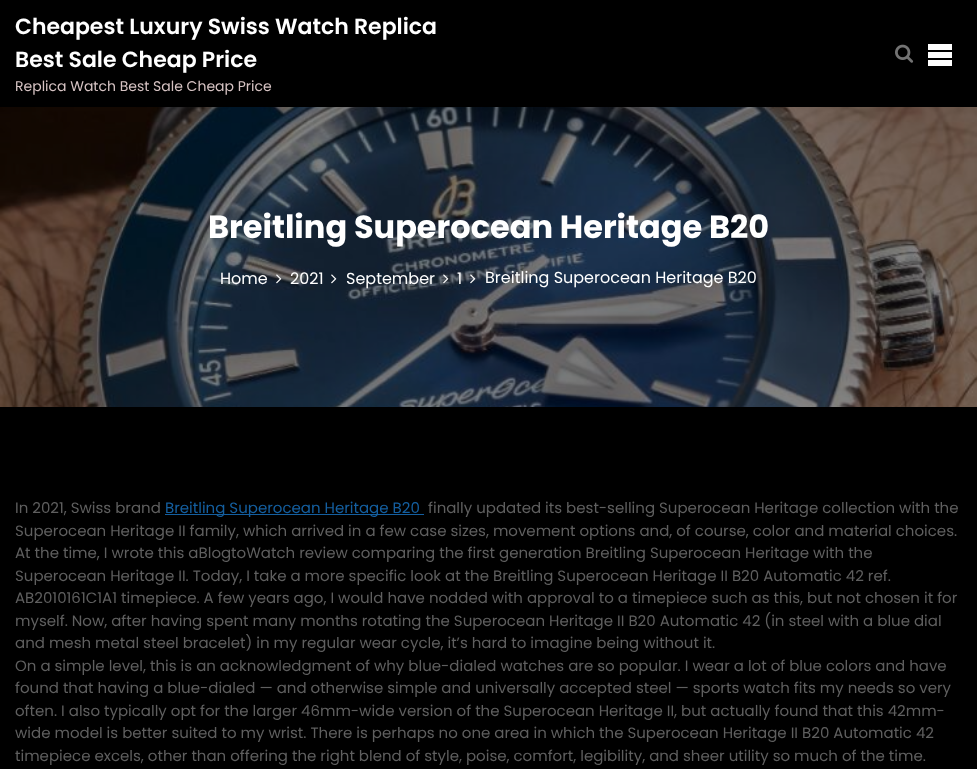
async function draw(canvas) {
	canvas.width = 977;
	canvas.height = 769;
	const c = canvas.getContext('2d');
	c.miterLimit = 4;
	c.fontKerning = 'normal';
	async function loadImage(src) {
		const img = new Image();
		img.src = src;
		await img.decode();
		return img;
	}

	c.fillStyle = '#000';
	c.fillRect(0, 0, 977, 769);
	c.font = '600 22px Poppins';
	c.fillStyle = '#fff';
	c.fillText('Cheapest Luxury Swiss Watch Replica', 15, 34);
	c.fillText('Best Sale Cheap Price', 15, 67);
	c.font = '14px Poppins';
	c.fillStyle = '#d6c3c3';
	c.fillText('Replica Watch Best Sale Cheap Price', 15, 91);
	c.drawImage(await loadImage('img1.png'), 895, 44, 19, 19);
	for (const [x, y, w, h, color] of [
		[928, 44, 24, 22, '#fff'],
		[928, 50, 24, 2, '#000'],
		[928, 58, 24, 2, '#000'],
	]) {
		c.fillStyle = color;
		c.fillRect(x, y, w, h);
	}
	c.drawImage(await loadImage('img2.png'), 0, 107, 977, 300);
	c.font = 'bold 32px Poppins';
	c.fillStyle = '#fff';
	c.fillText('Breitling Superocean Heritage B20', 208, 238);
	c.font = '16px Poppins';
	c.fillText('Home', 220, 284);
	c.drawImage(await loadImage('img3.png'), 276, 274, 6, 10);
	c.fillText('2021', 290, 284);
	c.drawImage(await loadImage('img4.png'), 331, 274, 6, 10);
	c.fillText('September', 346, 284);
	c.drawImage(await loadImage('img5.png'), 443, 274, 6, 10);
	c.fillText('1', 457, 284);
	c.drawImage(await loadImage('img6.png'), 470, 274, 6, 10);
	c.fillText('Breitling Superocean Heritage B20', 485, 283);
	c.font = '15px Poppins';
	c.fillStyle = '#5f5f5f';
	c.fillText('In 2021, Swiss brand', 15, 513);
	c.fillStyle = '#145fa0';
	c.fillRect(165, 514, 259, 1);
	c.fillText('Breitling Superocean Heritage B20', 165, 513);
	c.fillStyle = '#5f5f5f';
	for (const [text, x, y] of [
		['finally updated its best-selling Superocean Heritage collection with the', 428, 513],
		['Superocean Heritage II family, which arrived in a few case sizes, movement options and, of course, color and material choices.', 15, 536],
		['At the time, I wrote this aBlogtoWatch review comparing the first generation Breitling Superocean Heritage with the', 15, 558],
		['Superocean Heritage II. Today, I take a more specific look at the Breitling Superocean Heritage II B20 Automatic 42 ref.', 15, 581],
		['AB2010161C1A1 timepiece. A few years ago, I would have nodded with approval to a timepiece such as this, but not chosen it for', 15, 603],
		['myself. Now, after having spent many months rotating the Superocean Heritage II B20 Automatic 42 (in steel with a blue dial', 15, 626],
		['and mesh metal steel bracelet) in my regular wear cycle, it’s hard to imagine being without it.', 15, 648],
		['On a simple level, this is an acknowledgment of why blue-dialed watches are so popular. I wear a lot of blue colors and have', 15, 671],
		['found that having a blue-dialed — and otherwise simple and universally accepted steel — sports watch fits my needs so very', 15, 693],
		['often. I also typically opt for the larger 46mm-wide version of the Superocean Heritage II, but actually found that this 42mm-', 15, 716],
		['wide model is better suited to my wrist. There is perhaps no one area in which the Superocean Heritage II B20 Automatic 42', 15, 738],
		['timepiece excels, other than offering the right blend of style, poise, comfort, legibility, and sheer utility so much of the time.', 15, 761],
	]) {
		c.fillText(text, x, y);
	}
}

draw(document.querySelector('canvas'));
